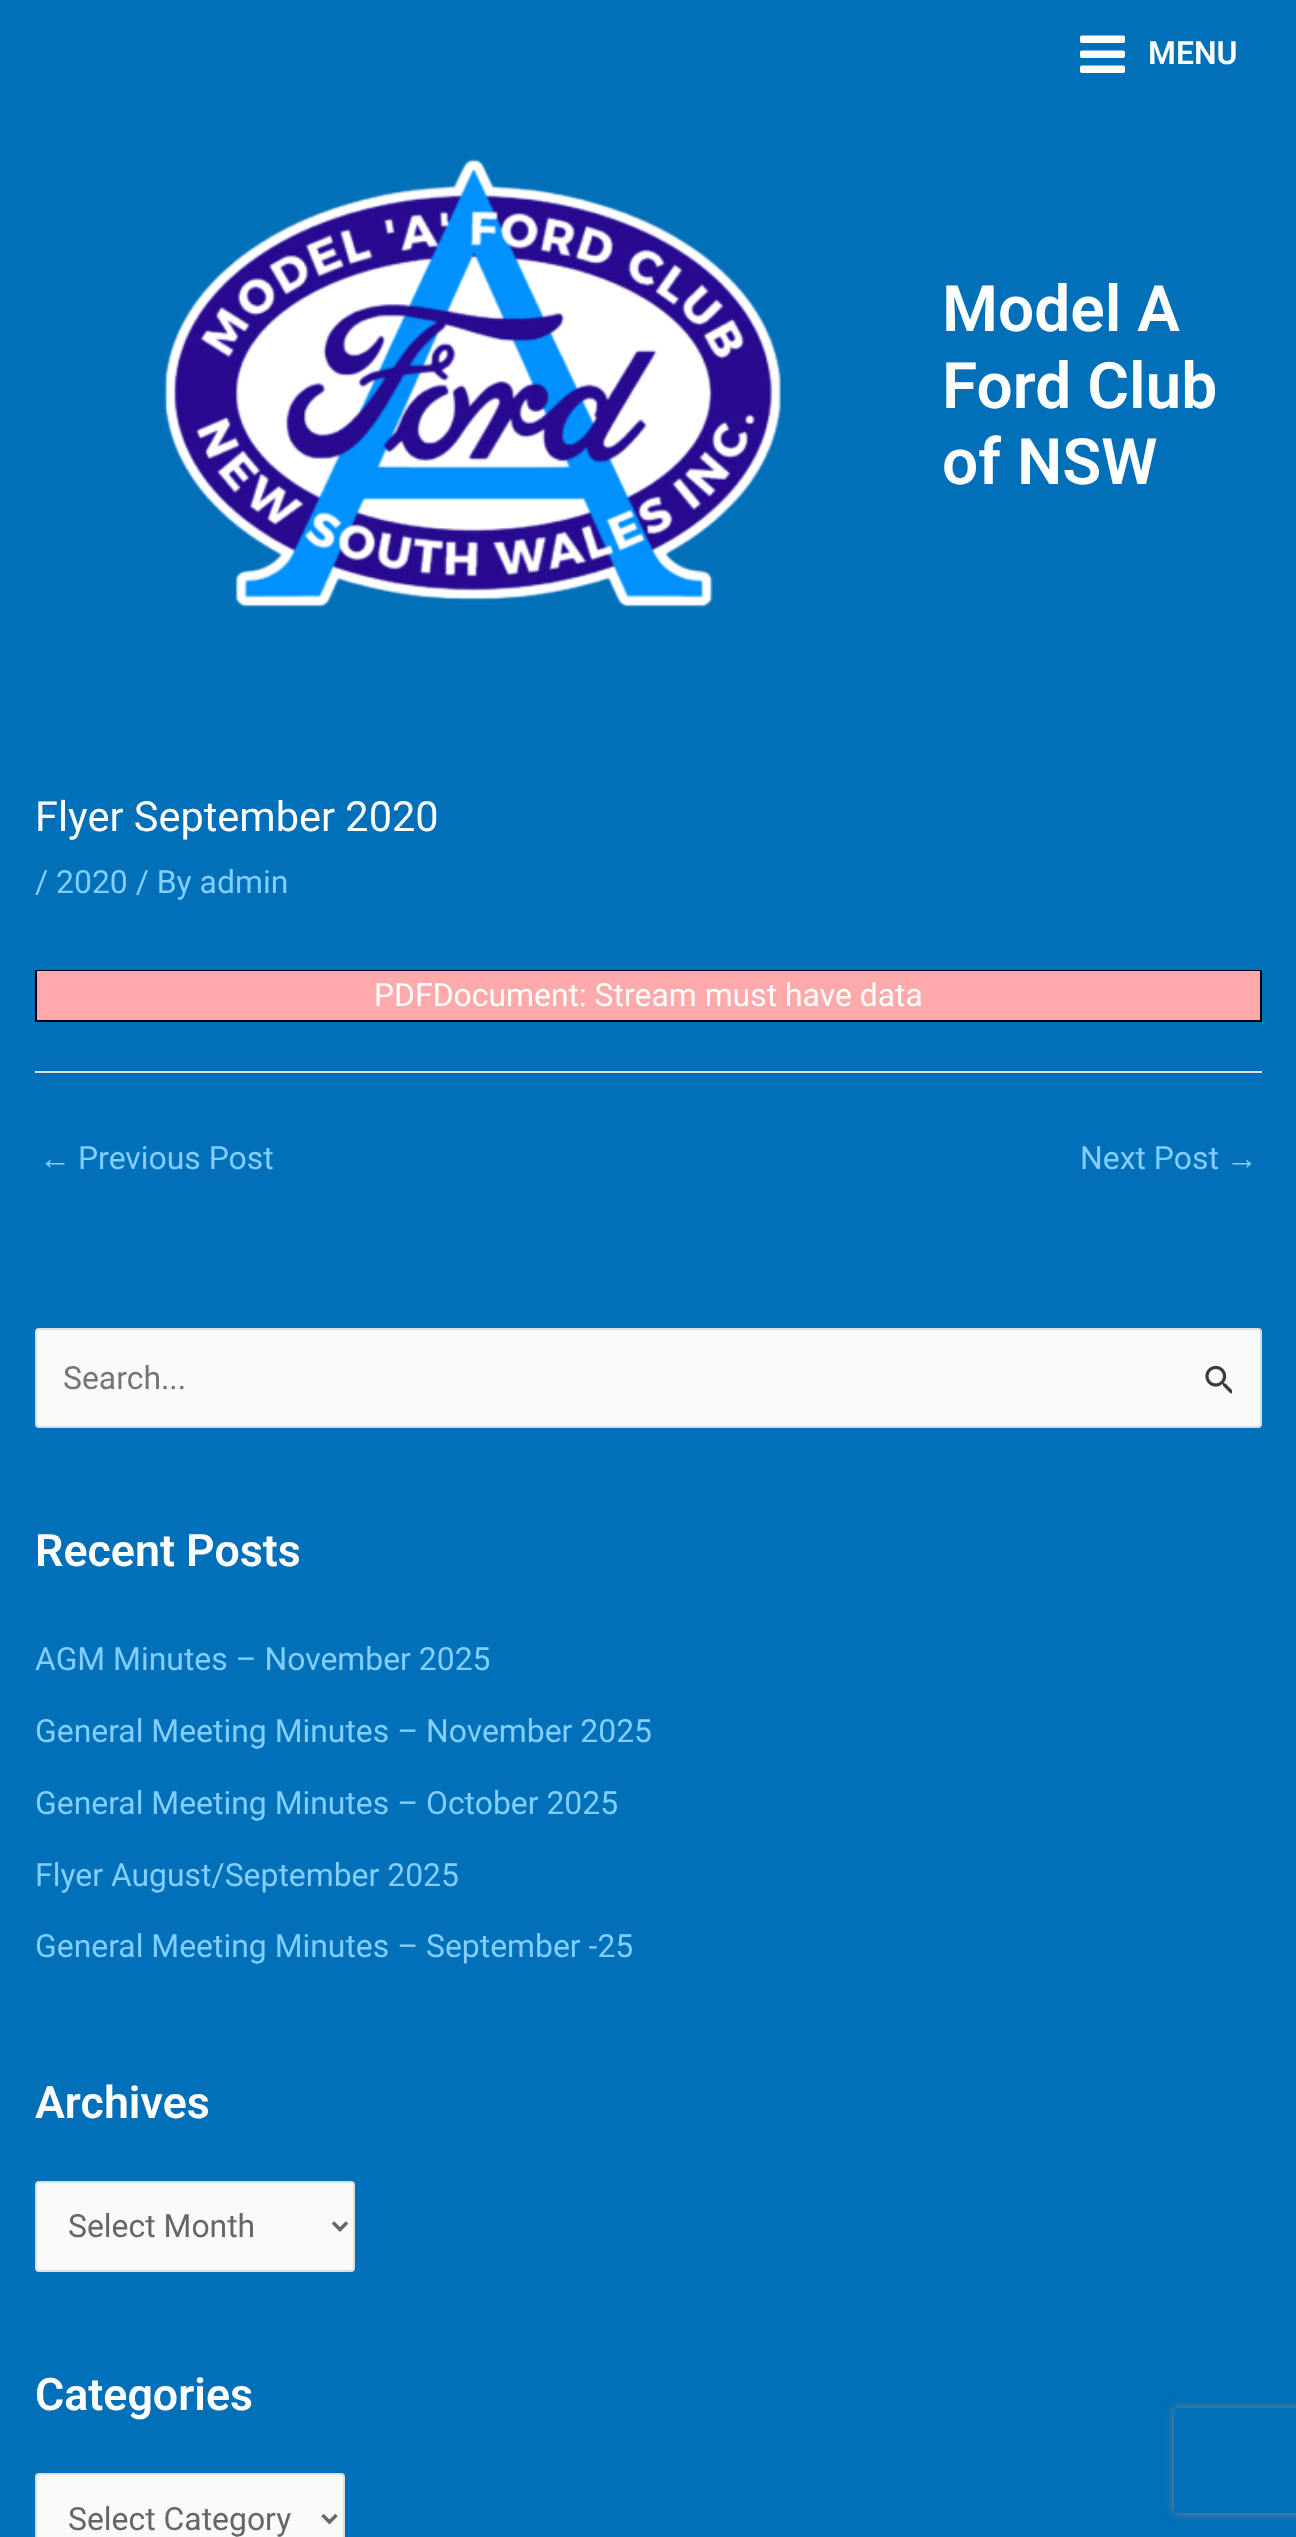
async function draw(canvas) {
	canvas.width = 1296;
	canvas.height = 2537;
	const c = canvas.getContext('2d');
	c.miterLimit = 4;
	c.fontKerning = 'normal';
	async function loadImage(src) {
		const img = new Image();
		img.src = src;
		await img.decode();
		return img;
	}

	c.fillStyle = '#0170b9';
	c.fillRect(0, 0, 1296, 2537);
	c.drawImage(await loadImage('img1.png'), 1080, 35, 45, 38);
	c.font = '600 31.9px Roboto';
	c.fillStyle = '#fff';
	c.fillText('MENU', 1148, 64);
	c.drawImage(await loadImage('img2.png'), 164, 159, 617, 449);
	c.font = '600 64px Roboto';
	for (const [text, x, y] of [
		['Model A', 942, 331],
		['Ford Club', 942, 408],
		['of NSW', 942, 484],
	]) {
		c.fillText(text, x, y);
	}
	c.font = '41.5px Roboto';
	c.fillText('Flyer September 2020', 35, 831);
	c.font = '31.9px Roboto';
	c.fillStyle = '#84ceff';
	c.fillText('/ 2020 / By admin', 35, 893);
	c.strokeStyle = '#000';
	c.lineWidth = 2;
	c.strokeRect(36, 971, 1225, 50);
	c.fillStyle = '#faa';
	c.fillRect(37, 971, 1223, 49);
	c.fillStyle = '#fff';
	c.fillText('PDFDocument: Stream must have data', 374, 1006);
	c.fillStyle = '#ddd';
	c.fillRect(35, 1071, 1227, 2);
	c.font = '31.9px Liberation Sans';
	c.fillStyle = '#84ceff';
	c.fillText('←', 39, 1169);
	c.font = '31.9px Roboto';
	c.fillText('Previous Post', 78, 1169);
	c.fillText('Next Post', 1080, 1169);
	c.font = '31.9px Liberation Sans';
	c.fillText('→', 1226, 1169);
	c.fillStyle = '#fafafa';
	c.beginPath();
	c.roundRect(36, 1329, 1225, 98, 3);
	c.fill();
	c.strokeStyle = '#ddd';
	c.stroke();
	c.font = '31.9px Roboto';
	c.fillStyle = '#757575';
	c.fillText('Search...', 63, 1389);
	c.drawImage(await loadImage('img3.png'), 1205, 1365, 27, 29);
	c.font = '600 44.75px Roboto';
	c.fillStyle = '#fff';
	c.fillText('Recent Posts', 35, 1566);
	c.font = '31.9px Roboto';
	c.fillStyle = '#84ceff';
	for (const [text, x, y] of [
		['AGM Minutes – November 2025', 35, 1670],
		['General Meeting Minutes – November 2025', 35, 1742],
		['General Meeting Minutes – October 2025', 35, 1814],
		['Flyer August/September 2025', 35, 1886],
		['General Meeting Minutes – September -25', 35, 1957],
	]) {
		c.fillText(text, x, y);
	}
	c.font = '600 44.75px Roboto';
	c.fillStyle = '#fff';
	c.fillText('Archives', 35, 2118);
	c.fillStyle = '#fafafa';
	c.beginPath();
	c.roundRect(36, 2182, 318, 89, 3);
	c.fill();
	c.stroke();
	c.beginPath();
	c.moveTo(333, 2222.5);
	c.lineTo(340, 2229.5);
	c.lineTo(347, 2222.5);
	c.strokeStyle = '#666';
	c.lineWidth = 3.5;
	c.stroke();
	c.font = '31.9px Roboto';
	c.fillStyle = '#666';
	c.fillText('Select Month', 68, 2237);
	c.font = '600 44.75px Roboto';
	c.fillStyle = '#fff';
	c.fillText('Categories', 35, 2410);
	c.fillStyle = '#fafafa';
	c.beginPath();
	c.roundRect(36, 2474, 308, 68, 3);
	c.fill();
	c.strokeStyle = '#ddd';
	c.lineWidth = 2;
	c.stroke();
	c.beginPath();
	c.moveTo(322.5, 2515);
	c.lineTo(329.5, 2522);
	c.lineTo(336.5, 2515);
	c.strokeStyle = '#666';
	c.lineWidth = 3.5;
	c.stroke();
	c.font = '31.9px Roboto';
	c.fillStyle = '#666';
	c.fillText('Select Category', 68, 2530);
	c.save();
	c.beginPath();
	c.moveTo(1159, 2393);
	c.lineTo(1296, 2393);
	c.lineTo(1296, 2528);
	c.lineTo(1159, 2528);
	c.closePath();
	c.moveTo(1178, 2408);
	c.lineTo(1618, 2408);
	c.bezierCurveTo(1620, 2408, 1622, 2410, 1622, 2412);
	c.lineTo(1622, 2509);
	c.bezierCurveTo(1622, 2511, 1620, 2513, 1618, 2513);
	c.lineTo(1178, 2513);
	c.bezierCurveTo(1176, 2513, 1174, 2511, 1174, 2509);
	c.lineTo(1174, 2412);
	c.bezierCurveTo(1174, 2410, 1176, 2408, 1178, 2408);
	c.closePath();
	c.clip('evenodd');
	c.fillStyle = '#808080';
	c.filter = 'blur(4.5px)';
	c.beginPath();
	c.roundRect(1174, 2408, 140, 105, 4);
	c.fill();
	c.filter = 'none';
	c.restore();
}

draw(document.querySelector('canvas'));
